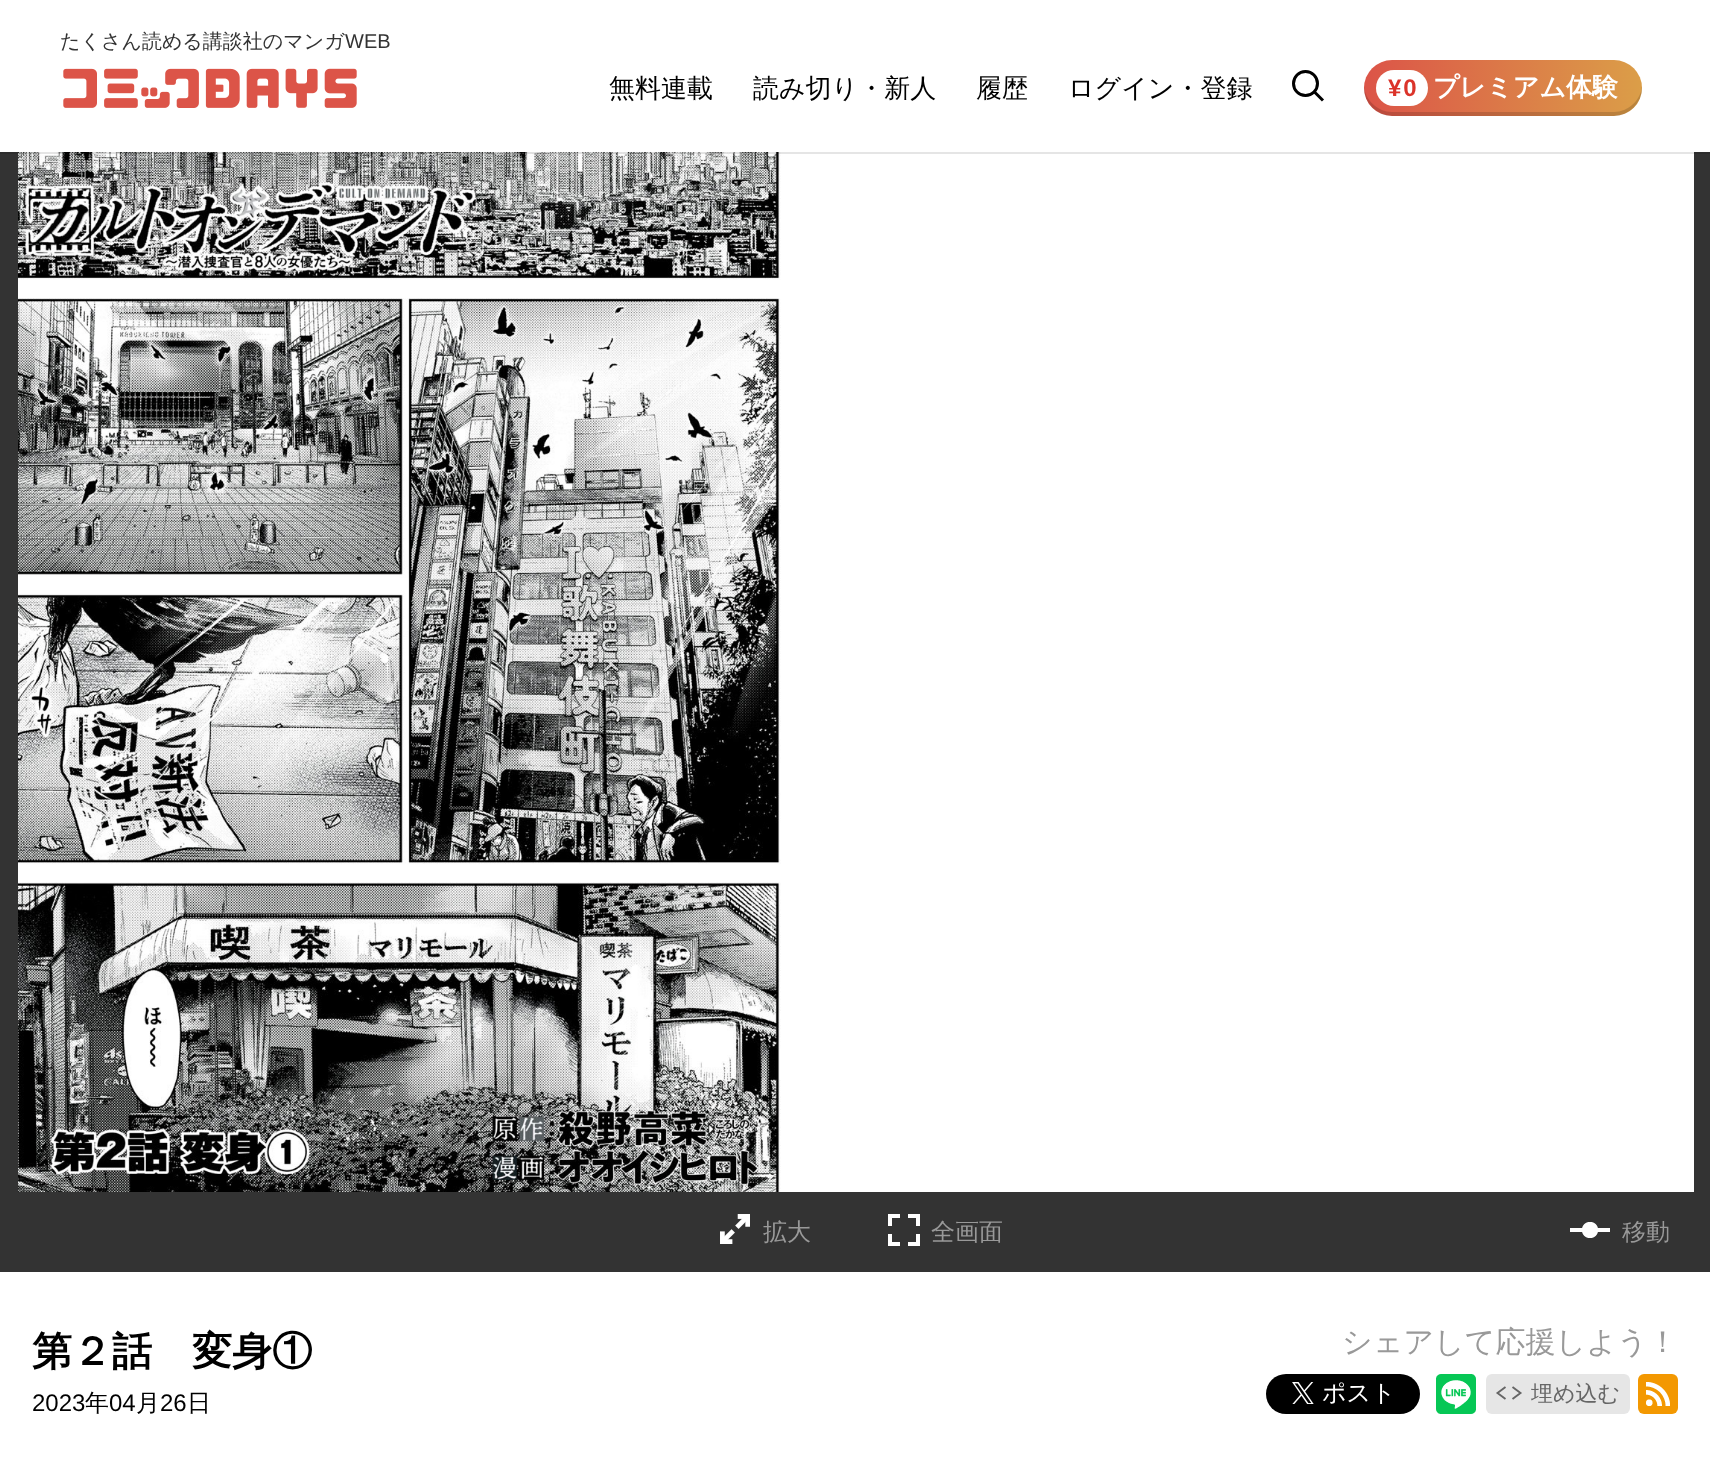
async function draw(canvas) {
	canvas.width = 1710;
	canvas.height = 1462;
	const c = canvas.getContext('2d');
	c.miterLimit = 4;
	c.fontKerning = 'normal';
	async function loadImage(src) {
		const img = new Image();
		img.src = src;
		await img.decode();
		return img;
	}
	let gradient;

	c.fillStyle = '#fff';
	c.fillRect(0, 0, 1710, 1462);
	c.fillStyle = '#333';
	c.fillRect(0, 152, 1710, 1120);
	c.drawImage(await loadImage('img2.png'), 18, 152, 838, 1040);
	c.fillStyle = '#fff';
	c.fillRect(856, 152, 838, 1040);
	c.fillStyle = '#0000001a';
	c.fillRect(0, 152, 1710, 2);
	c.font = '500 20px WenQuanYi Zen Hei';
	c.fillStyle = '#333';
	c.fillText('たくさん読める講談社のマンガ', 60, 48);
	c.font = '20px Liberation Sans';
	c.fillText('WEB', 345, 48);
	c.drawImage(await loadImage('img1.png'), 63, 68, 294, 40);
	c.font = '500 26px WenQuanYi Zen Hei';
	c.fillStyle = '#000';
	for (const [text, x, y] of [
		['無料連載', 609, 97],
		['読み切り・新人', 753, 97],
		['履歴', 976, 97],
		['ログイン・登録', 1068, 97],
	]) {
		c.fillText(text, x, y);
	}
	c.beginPath();
	c.arc(1305.5, 83.5, 12, 0, 2 * Math.PI);
	c.strokeStyle = '#000';
	c.lineWidth = 3;
	c.stroke();
	c.beginPath();
	c.moveTo(1313.5, 91);
	c.lineTo(1323, 100.5);
	c.stroke();
	gradient = c.createLinearGradient(1364, 88, 1642, 88);
	gradient.addColorStop(0, '#dc5448');
	gradient.addColorStop(1, '#db9e48');
	c.fillStyle = gradient;
	c.beginPath();
	c.roundRect(1364, 60, 278, 56, 28);
	c.fill();
	c.fillStyle = '#00000026';
	c.beginPath();
	c.moveTo(1364, 86);
	c.lineTo(1364, 88);
	c.bezierCurveTo(1364, 103, 1377, 116, 1392, 116);
	c.lineTo(1614, 116);
	c.bezierCurveTo(1629, 116, 1642, 103, 1642, 88);
	c.lineTo(1642, 86);
	c.bezierCurveTo(1641, 100, 1628, 112, 1614, 112);
	c.lineTo(1392, 112);
	c.bezierCurveTo(1378, 112, 1365, 100, 1364, 86);
	c.closePath();
	c.fill();
	c.fillStyle = '#fff';
	c.beginPath();
	c.roundRect(1376, 70, 52, 36, 18);
	c.fill();
	c.letterSpacing = '2px';
	c.font = 'bold 24px Liberation Sans';
	c.fillStyle = '#db332a';
	c.fillText('¥0', 1388, 96);
	c.letterSpacing = '0px';
	c.font = 'bold 26px WenQuanYi Zen Hei';
	c.fillStyle = '#fff';
	c.fillText('プレミアム体験', 1433, 96);
	c.drawImage(await loadImage('img3.png'), 720, 1214, 30, 30);
	c.font = '500 24px WenQuanYi Zen Hei';
	c.fillStyle = '#999';
	c.fillText('拡大', 763, 1240);
	c.drawImage(await loadImage('img4.png'), 888, 1214, 32, 32);
	c.fillText('全画面', 931, 1240);
	c.drawImage(await loadImage('img5.png'), 1570, 1222, 40, 16);
	c.fillText('移動', 1622, 1240);
	c.font = 'bold 40px WenQuanYi Zen Hei';
	c.fillStyle = '#000';
	c.fillText('第２話　変身①', 32, 1365);
	c.font = '24px Liberation Sans';
	c.fillText('2023', 32, 1411);
	c.font = '500 24px WenQuanYi Zen Hei';
	c.fillText('年', 85, 1411);
	c.font = '24px Liberation Sans';
	c.fillText('04', 109, 1411);
	c.font = '500 24px WenQuanYi Zen Hei';
	c.fillText('月', 136, 1411);
	c.font = '24px Liberation Sans';
	c.fillText('26', 160, 1411);
	c.font = '500 24px WenQuanYi Zen Hei';
	c.fillText('日', 187, 1411);
	c.font = '500 30px WenQuanYi Zen Hei';
	c.fillStyle = '#999';
	c.fillText('シェアして応援しよう！', 1342, 1352);
	c.fillStyle = '#000';
	c.beginPath();
	c.roundRect(1266, 1374, 154, 40, 20);
	c.fill();
	c.drawImage(await loadImage('img6.png'), 1292, 1382, 22, 22);
	c.font = '500 24px WenQuanYi Zen Hei';
	c.fillStyle = '#fff';
	c.fillText('ポスト', 1322, 1401);
	c.drawImage(await loadImage('img7.png'), 1436, 1374, 40, 40);
	c.fillStyle = '#e6e6e6';
	c.beginPath();
	c.roundRect(1486, 1374, 144, 40, 6);
	c.fill();
	c.beginPath();
	c.moveTo(1505.5, 1387);
	c.lineTo(1497.5, 1393);
	c.lineTo(1505.5, 1399);
	c.moveTo(1512.5, 1399);
	c.lineTo(1520.5, 1393);
	c.lineTo(1512.5, 1387);
	c.strokeStyle = '#666';
	c.lineWidth = 1.9;
	c.stroke();
	c.font = '500 22px WenQuanYi Zen Hei';
	c.fillStyle = '#666';
	c.fillText('埋め込む', 1531, 1401);
	c.fillStyle = '#f39801';
	c.beginPath();
	c.roundRect(1638, 1374, 40, 40, 6);
	c.fill();
	c.drawImage(await loadImage('img8.png'), 1646, 1382, 24, 24);
}

draw(document.querySelector('canvas'));
